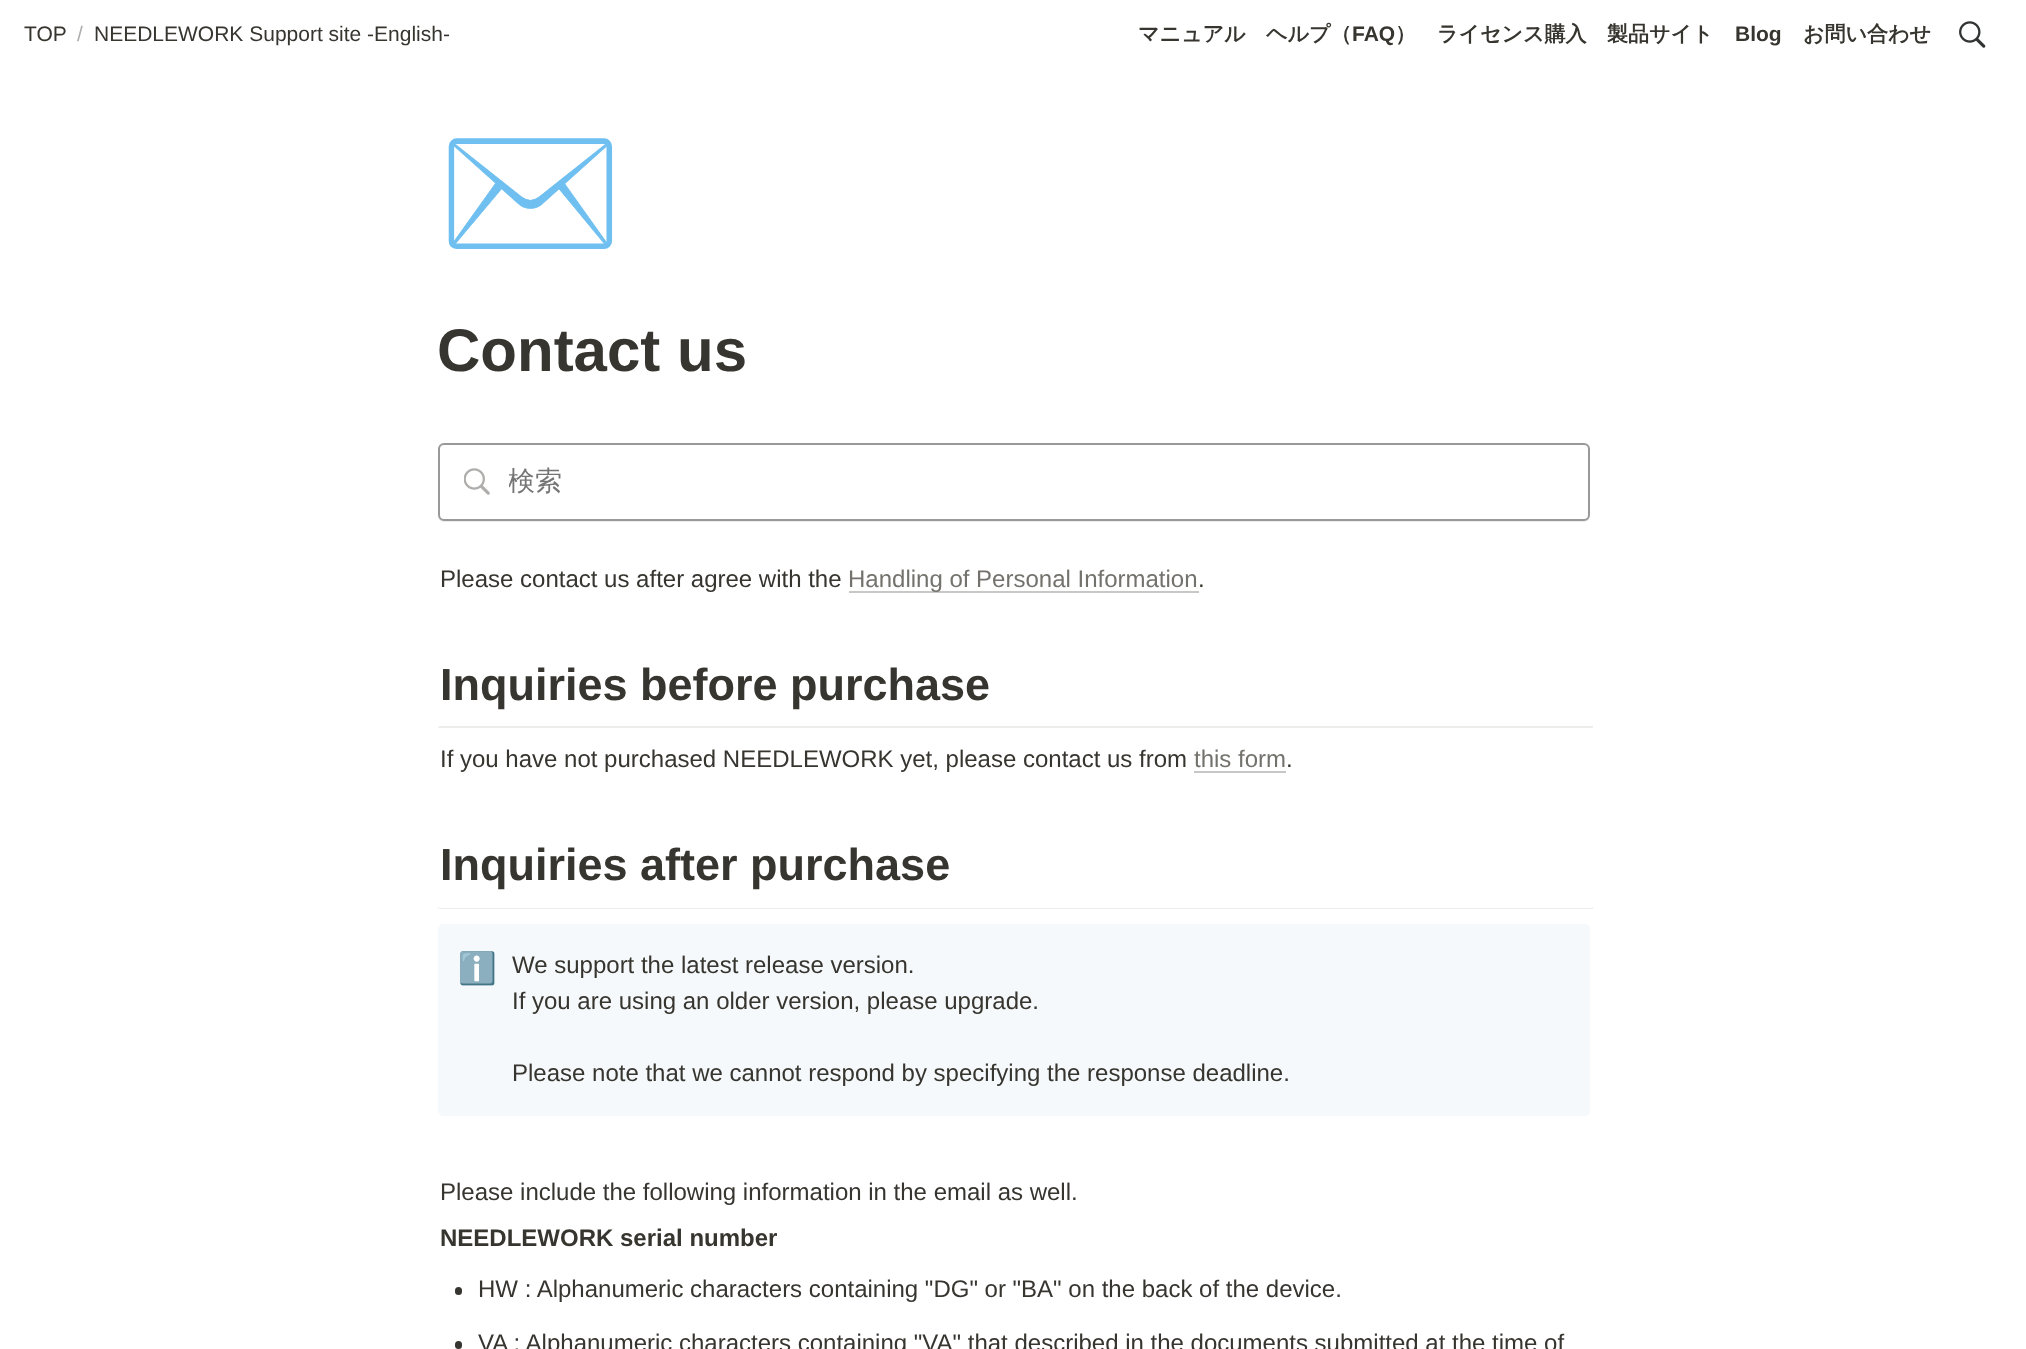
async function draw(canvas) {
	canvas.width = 2026;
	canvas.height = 1349;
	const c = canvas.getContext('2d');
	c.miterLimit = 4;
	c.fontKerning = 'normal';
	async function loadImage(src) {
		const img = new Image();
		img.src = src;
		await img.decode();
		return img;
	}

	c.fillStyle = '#fff';
	c.fillRect(0, 0, 2026, 1349);
	c.font = '21px Liberation Sans';
	c.fillStyle = '#37352f';
	c.fillText('TOP', 24, 41);
	c.fillStyle = '#afaeac';
	c.fillText('/', 77, 41);
	c.fillStyle = '#37352f';
	c.fillText('NEEDLEWORK Support site -English-', 94, 41);
	c.font = 'bold 21px WenQuanYi Zen Hei';
	c.fillText('マニュアル', 1138, 41);
	c.fillText('ヘルプ（', 1266, 41);
	c.font = 'bold 21px Liberation Sans';
	c.fillText('FAQ', 1352, 41);
	c.font = 'bold 21px WenQuanYi Zen Hei';
	for (const [text, x, y] of [
		['）', 1395, 41],
		['ライセンス購入', 1437, 41],
		['製品サイト', 1607, 41],
	]) {
		c.fillText(text, x, y);
	}
	c.font = 'bold 21px Liberation Sans';
	c.fillText('Blog', 1735, 41);
	c.font = 'bold 21px WenQuanYi Zen Hei';
	c.fillText('お問い合わせ', 1803, 41);
	c.drawImage(await loadImage('img1.png'), 1959, 21, 27, 27);
	c.font = '150px Noto Color Emoji';
	c.fillText('✉️', 437, 245);
	c.font = 'bold 60px Liberation Sans';
	c.fillText('Contact us', 437, 371);
	c.fillStyle = '#ededec';
	c.beginPath();
	c.moveTo(438, 514);
	c.lineTo(438, 516);
	c.bezierCurveTo(438, 519, 441, 522, 444, 522);
	c.lineTo(1584, 522);
	c.bezierCurveTo(1587, 522, 1590, 519, 1590, 516);
	c.lineTo(1590, 514);
	c.bezierCurveTo(1590, 518, 1587, 520, 1584, 520);
	c.lineTo(444, 520);
	c.bezierCurveTo(441, 520, 438, 518, 438, 514);
	c.closePath();
	c.fill();
	c.beginPath();
	c.roundRect(439, 444, 1150, 76, 5);
	c.strokeStyle = '#999';
	c.lineWidth = 2;
	c.stroke();
	c.drawImage(await loadImage('img2.png'), 464, 468, 26, 27);
	c.save();
	c.beginPath();
	c.rect(509, 464, 1053, 36);
	c.clip();
	c.font = '500 27px WenQuanYi Zen Hei';
	c.fillStyle = '#757575';
	c.fillText('検索', 508, 490);
	c.restore();
	c.font = '24px Liberation Sans';
	c.fillStyle = '#37352f';
	c.fillText('Please contact us after agree with the', 440, 587);
	c.fillStyle = '#c7c7c5';
	c.fillRect(849, 591, 350, 2);
	c.fillStyle = '#73726d';
	c.fillText('Handling of Personal Information', 848, 587);
	c.fillStyle = '#37352f';
	c.fillText('.', 1198, 587);
	c.font = 'bold 45px Liberation Sans';
	c.fillText('Inquiries before purchase', 440, 700);
	c.fillStyle = '#ededec';
	c.beginPath();
	c.moveTo(1593, 726);
	c.lineTo(1593, 727.5);
	c.lineTo(1591.5, 726);
	c.closePath();
	c.fill();
	c.beginPath();
	c.moveTo(1593, 728);
	c.lineTo(438, 728);
	c.lineTo(440, 726);
	c.lineTo(1592, 726);
	c.closePath();
	c.fill();
	c.fillStyle = '#ebebeb';
	c.beginPath();
	c.moveTo(438, 727.5);
	c.lineTo(438, 726);
	c.lineTo(439.5, 726);
	c.closePath();
	c.fill();
	c.font = '24px Liberation Sans';
	c.fillStyle = '#37352f';
	c.fillText('If you have not purchased NEEDLEWORK yet, please contact us from', 440, 767);
	c.fillStyle = '#73726d';
	c.fillText('this form', 1194, 767);
	c.fillStyle = '#c7c7c5';
	c.fillRect(1194, 771, 92, 2);
	c.fillStyle = '#37352f';
	c.fillText('.', 1286, 767);
	c.font = 'bold 45px Liberation Sans';
	c.fillText('Inquiries after purchase', 440, 880);
	c.fillStyle = '#ededec';
	c.beginPath();
	c.moveTo(1593, 907.5);
	c.lineTo(1593, 909);
	c.lineTo(1591.5, 907.5);
	c.closePath();
	c.fill();
	c.fillStyle = '#37352f17';
	c.beginPath();
	c.moveTo(1593, 909);
	c.lineTo(438, 909);
	c.lineTo(440, 908);
	c.lineTo(1592, 908);
	c.closePath();
	c.fill();
	c.fillStyle = '#25231f17';
	c.beginPath();
	c.moveTo(438, 909);
	c.lineTo(438, 907.5);
	c.lineTo(439.5, 907.5);
	c.closePath();
	c.fill();
	c.fillStyle = '#f5f9fb';
	c.beginPath();
	c.roundRect(438, 924, 1152, 192, 5);
	c.fill();
	c.font = '31px Noto Color Emoji';
	c.fillStyle = '#37352f';
	c.fillText('ℹ️', 458, 979);
	c.font = '24px Liberation Sans';
	for (const [text, x, y] of [
		['We support the latest release version.', 512, 973],
		['If you are using an older version, please upgrade.', 512, 1009],
		['Please note that we cannot respond by specifying the response deadline.', 512, 1081],
		['Please include the following information in the email as well.', 440, 1200],
	]) {
		c.fillText(text, x, y);
	}
	c.font = 'bold 24px Liberation Sans';
	c.fillText('NEEDLEWORK serial number', 440, 1246);
	c.beginPath();
	c.roundRect(455, 1287, 7, 8, 3.5);
	c.fill();
	c.font = '24px Liberation Sans';
	c.fillText('HW : Alphanumeric characters containing "DG" or "BA" on the back of the device.', 478, 1297);
	c.beginPath();
	c.roundRect(455, 1341, 7, 8, 3.5);
	c.fill();
	c.fillText('VA : Alphanumeric characters containing "VA" that described in the documents submitted at the time of', 478, 1351);
}

draw(document.querySelector('canvas'));
